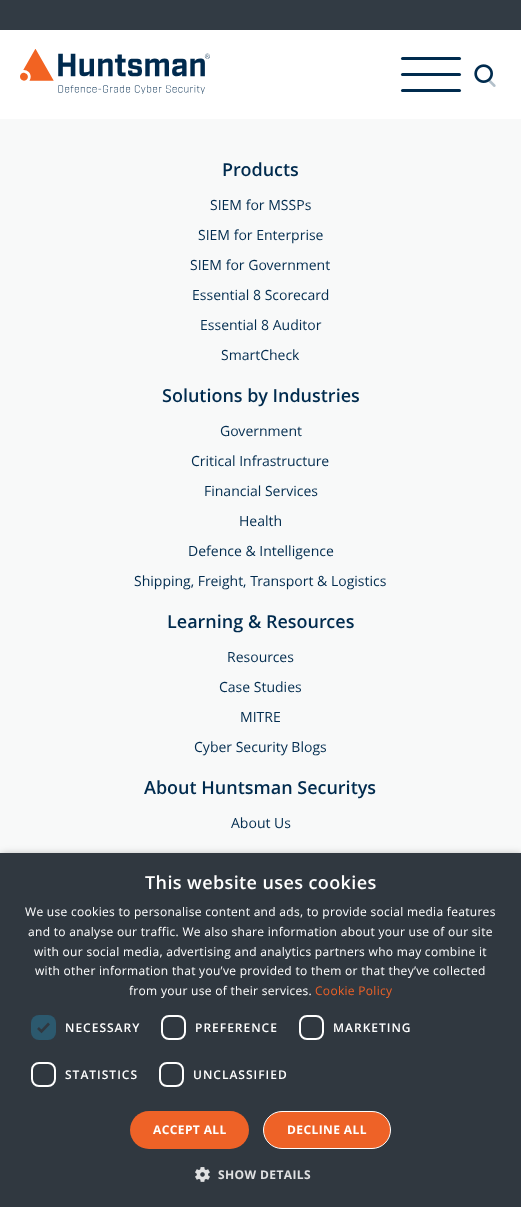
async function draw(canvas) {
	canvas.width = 521;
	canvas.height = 1207;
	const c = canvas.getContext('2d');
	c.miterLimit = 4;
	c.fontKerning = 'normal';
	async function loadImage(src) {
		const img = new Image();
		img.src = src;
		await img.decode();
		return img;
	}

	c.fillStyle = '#f8f9f9';
	c.fillRect(0, 0, 521, 1207);
	c.fillStyle = '#fff';
	c.fillRect(0, 30, 521, 89);
	c.fillStyle = '#323b44';
	c.fillRect(0, 0, 521, 30);
	c.drawImage(await loadImage('img1.png'), 20, 49, 190, 45);
	c.fillStyle = '#002b4e';
	c.beginPath();
	c.roundRect(401, 57, 60, 3, 1.5);
	c.fill();
	c.beginPath();
	c.roundRect(401, 73, 60, 3, 1.5);
	c.fill();
	c.beginPath();
	c.roundRect(401, 89, 60, 3, 1.5);
	c.fill();
	c.drawImage(await loadImage('img2.png'), 474, 64, 22, 23);
	c.font = '600 18px Open Sans';
	c.fillText('Products', 222, 176);
	c.font = '14px Open Sans';
	for (const [text, x, y] of [
		['SIEM for MSSPs', 210, 210],
		['SIEM for Enterprise', 198, 240],
		['SIEM for Government', 190, 270],
		['Essential 8 Scorecard', 192, 300],
		['Essential 8 Auditor', 200, 330],
		['SmartCheck', 221, 360],
	]) {
		c.fillText(text, x, y);
	}
	c.font = '600 18px Open Sans';
	c.fillText('Solutions by Industries', 162, 402);
	c.font = '14px Open Sans';
	for (const [text, x, y] of [
		['Government', 220, 436],
		['Critical Infrastructure', 191, 466],
		['Financial Services', 204, 496],
		['Health', 239, 526],
		['Defence & Intelligence', 188, 556],
		['Shipping, Freight, Transport & Logistics', 134, 586],
	]) {
		c.fillText(text, x, y);
	}
	c.font = '600 18px Open Sans';
	c.fillText('Learning & Resources', 167, 628);
	c.font = '14px Open Sans';
	for (const [text, x, y] of [
		['Resources', 227, 662],
		['Case Studies', 219, 692],
		['MITRE', 240, 722],
		['Cyber Security Blogs', 194, 752],
	]) {
		c.fillText(text, x, y);
	}
	c.font = '600 18px Open Sans';
	c.fillText('About Huntsman Securitys', 144, 794);
	c.font = '14px Open Sans';
	c.fillText('About Us', 231, 828);
	c.fillStyle = '#00000059';
	c.filter = 'blur(4px)';
	c.beginPath();
	c.rect(1, 855, 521, 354);
	c.fill();
	c.filter = 'none';
	c.fillStyle = '#303840';
	c.fillRect(0, 853, 521, 354);
	c.letterSpacing = '0.4px';
	c.font = '600 18px "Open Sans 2"';
	c.fillStyle = '#fff';
	c.fillText('This website uses cookies', 145, 889);
	c.letterSpacing = '0.3px';
	c.font = '12px "Open Sans 2"';
	for (const [text, x, y] of [
		['We use cookies to personalise content and ads, to provide social media features', 25, 916],
		['and to analyse our traffic. We also share information about your use of our site', 28, 936],
		['with our social media, advertising and analytics partners who may combine it', 34, 956],
		['with other information that you’ve provided to them or that they’ve collected', 35, 975],
		['from your use of their services.', 129, 995],
	]) {
		c.fillText(text, x, y);
	}
	c.fillStyle = '#ee6227';
	c.fillText('Cookie Policy', 315, 995);
	c.fillStyle = '#2c596e';
	c.beginPath();
	c.roundRect(31, 1015, 25, 25, 8);
	c.fill();
	c.beginPath();
	c.moveTo(38, 1028);
	c.lineTo(41.5, 1031.5);
	c.lineTo(49, 1023.5);
	c.strokeStyle = '#303840';
	c.lineWidth = 2.6;
	c.stroke();
	c.letterSpacing = '1px';
	c.font = '600 12px "Open Sans 2"';
	c.fillStyle = '#fff';
	c.fillText('NECESSARY', 65, 1032);
	c.beginPath();
	c.roundRect(162, 1016, 23, 23, 7);
	c.strokeStyle = '#fff';
	c.lineWidth = 2;
	c.stroke();
	c.fillText('PREFERENCE', 195, 1032);
	c.beginPath();
	c.roundRect(300, 1016, 23, 23, 7);
	c.stroke();
	c.fillText('MARKETING', 333, 1032);
	c.beginPath();
	c.roundRect(32, 1063, 23, 23, 7);
	c.stroke();
	c.fillText('STATISTICS', 65, 1079);
	c.beginPath();
	c.roundRect(160, 1063, 23, 23, 7);
	c.stroke();
	c.fillText('UNCLASSIFIED', 193, 1079);
	c.fillStyle = '#ee6227';
	c.beginPath();
	c.roundRect(130, 1111, 119, 38, 19);
	c.fill();
	c.letterSpacing = '0.4px';
	c.font = 'bold 12px Open Sans';
	c.fillStyle = '#fff';
	c.fillText('ACCEPT ALL', 153, 1134);
	c.fillStyle = '#ee6227';
	c.beginPath();
	c.roundRect(263.5, 1111.5, 127, 37, 18.5);
	c.fill();
	c.lineWidth = 1;
	c.stroke();
	c.fillStyle = '#fff';
	c.fillText('DECLINE ALL', 287, 1134);
	c.drawImage(await loadImage('img3.png'), 195, 1167, 15, 15);
	c.fillStyle = '#e0e1e2';
	c.fillText('SHOW DETAILS', 218, 1179);
}

draw(document.querySelector('canvas'));
